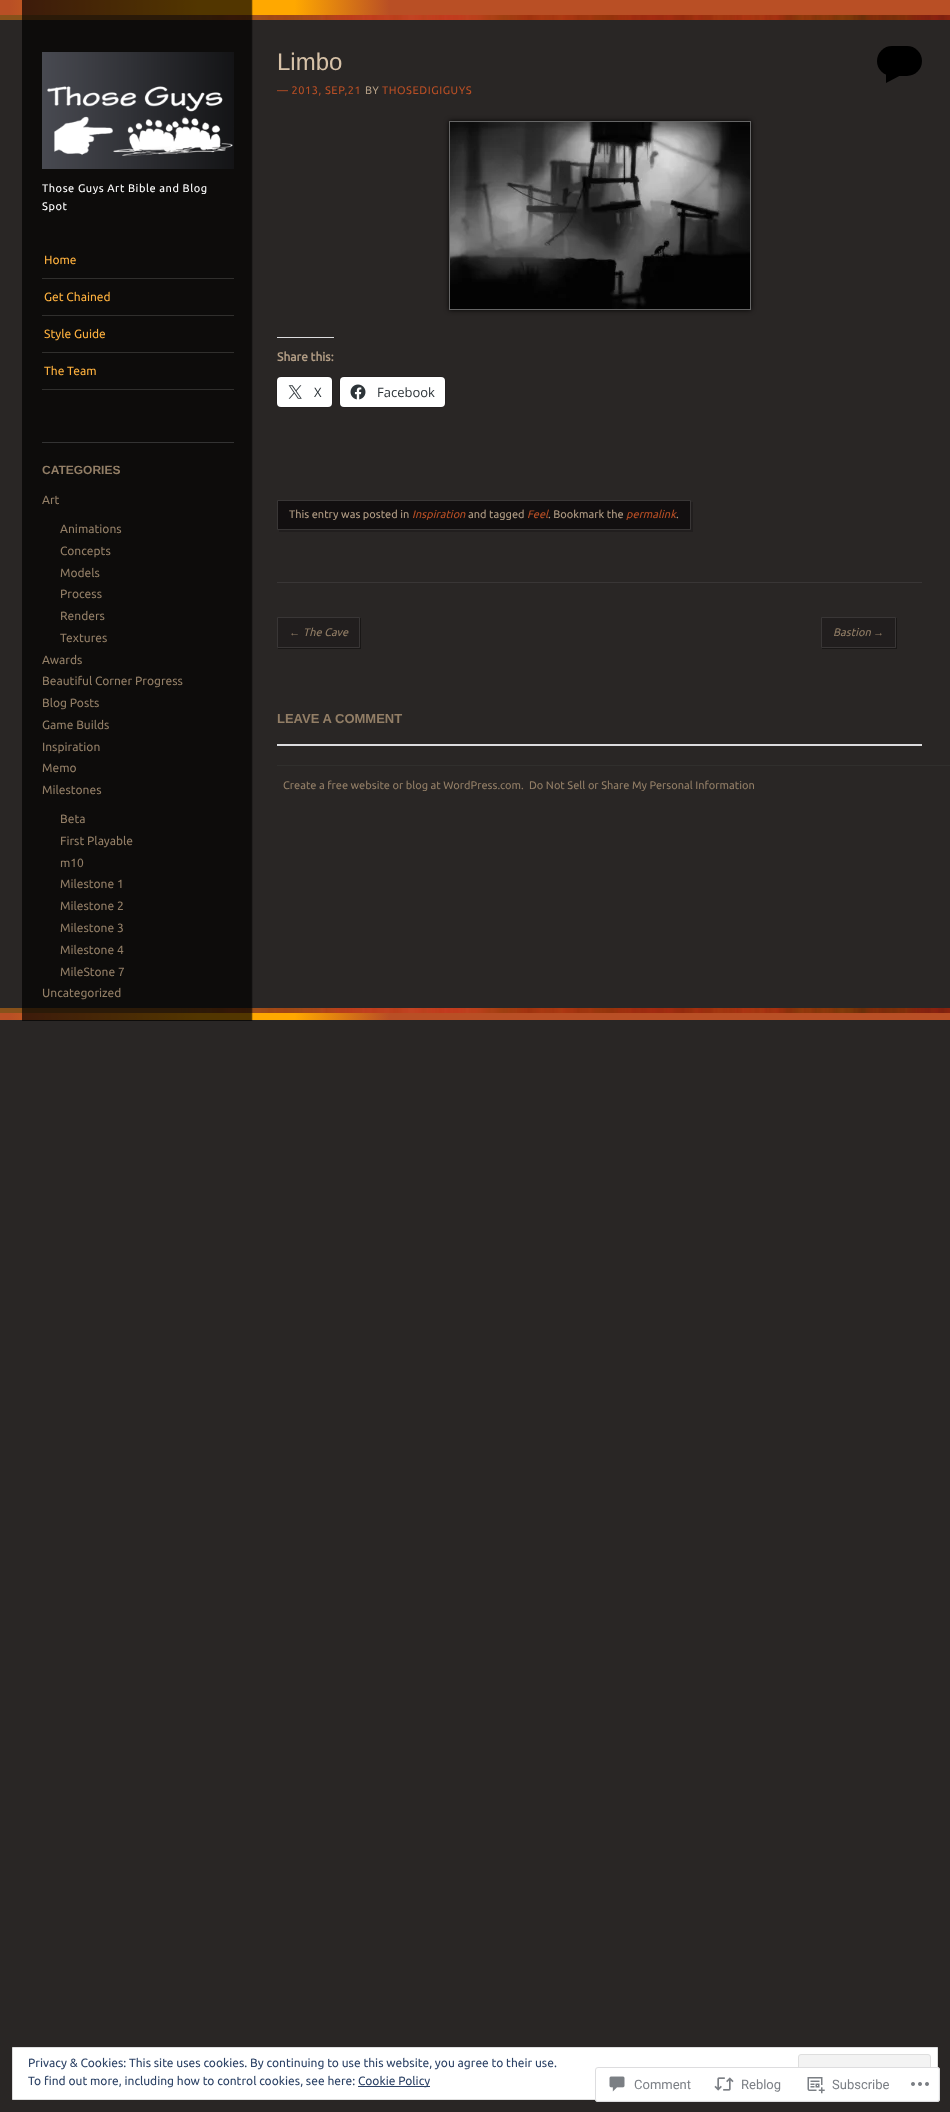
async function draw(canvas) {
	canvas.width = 950;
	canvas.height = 2112;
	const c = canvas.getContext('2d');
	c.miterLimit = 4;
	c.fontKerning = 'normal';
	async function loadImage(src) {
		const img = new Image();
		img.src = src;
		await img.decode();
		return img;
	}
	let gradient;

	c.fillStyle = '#292625';
	c.fillRect(0, 0, 950, 2112);
	gradient = c.createLinearGradient(0, 10, 950, 10);
	gradient.addColorStop(0.01, '#b94f25');
	gradient.addColorStop(0.21, '#ffa800');
	gradient.addColorStop(0.31, '#ffa800');
	gradient.addColorStop(0.41, '#b94f25');
	c.fillStyle = gradient;
	c.fillRect(0, 0, 950, 15);
	c.drawImage(await loadImage('img1.png'), 0, 15, 950, 5);
	gradient = c.createLinearGradient(0, 1014, 950, 1014);
	gradient.addColorStop(0.01, '#b94f25');
	gradient.addColorStop(0.21, '#ffa800');
	gradient.addColorStop(0.31, '#ffa800');
	gradient.addColorStop(0.41, '#b94f25');
	c.fillStyle = gradient;
	c.fillRect(0, 1013, 950, 7);
	c.drawImage(await loadImage('img1.png'), 0, 1008, 950, 5);
	c.drawImage(await loadImage('img2.png'), 22, 0, 231, 1021);
	c.drawImage(await loadImage('img3.png'), 42, 52, 192, 117);
	c.letterSpacing = '0.55px';
	c.font = '11px Ubuntu';
	c.fillStyle = '#fff';
	c.fillText('Those Guys Art Bible and Blog', 42, 192);
	c.fillText('Spot', 42, 210);
	c.fillStyle = '#302f2d';
	c.fillRect(42, 278, 192, 1);
	c.letterSpacing = '0px';
	c.font = '12px Ubuntu';
	c.fillStyle = '#fcb03e';
	c.fillText('Home', 44, 264);
	c.fillStyle = '#302f2d';
	c.fillRect(42, 315, 192, 1);
	c.fillStyle = '#fcb03e';
	c.fillText('Get Chained', 44, 301);
	c.fillStyle = '#302f2d';
	c.fillRect(42, 352, 192, 1);
	c.fillStyle = '#fcb03e';
	c.fillText('Style Guide', 44, 338);
	c.fillStyle = '#302f2d';
	c.fillRect(42, 389, 192, 1);
	c.fillStyle = '#fcb03e';
	c.fillText('The Team', 44, 375);
	c.fillStyle = '#333';
	c.fillRect(42, 442, 192, 1);
	c.font = 'bold 12px Liberation Sans';
	c.fillStyle = '#927e66';
	c.fillText('CATEGORIES', 42, 474);
	c.font = '12px Ubuntu';
	for (const [text, x, y] of [
		['Art', 42, 504],
		['Animations', 60, 533],
		['Concepts', 60, 555],
		['Models', 60, 577],
		['Process', 60, 598],
		['Renders', 60, 620],
		['Textures', 60, 642],
		['Awards', 42, 664],
		['Beautiful Corner Progress', 42, 685],
		['Blog Posts', 42, 707],
		['Game Builds', 42, 729],
		['Inspiration', 42, 751],
		['Memo', 42, 772],
		['Milestones', 42, 794],
		['Beta', 60, 823],
		['First Playable', 60, 845],
		['m10', 60, 867],
		['Milestone 1', 60, 888],
		['Milestone 2', 60, 910],
		['Milestone 3', 60, 932],
		['Milestone 4', 60, 954],
		['MileStone 7', 60, 976],
		['Uncategorized', 42, 997],
	]) {
		c.fillText(text, x, y);
	}
	c.fillStyle = '#393636';
	c.fillRect(277, 582, 645, 1);
	c.font = '24px Liberation Sans';
	c.fillStyle = '#d7c2a8';
	c.fillText('Limbo', 277, 70);
	c.fillStyle = '#000';
	c.beginPath();
	c.roundRect(877, 46, 45, 30, 15);
	c.fill();
	c.beginPath();
	c.moveTo(886, 83);
	c.lineTo(886, 73);
	c.lineTo(905, 73);
	c.closePath();
	c.fill();
	c.letterSpacing = '0.55px';
	c.font = '11px Ubuntu';
	c.fillStyle = '#b94f25';
	c.fillText('— 2013, SEP,21', 277, 94);
	c.fillStyle = '#b29d85';
	c.fillText('BY', 365, 94);
	c.fillStyle = '#b94f25';
	c.fillText('THOSEDIGIGUYS', 382, 94);
	c.fillStyle = '#000000e6';
	c.filter = 'blur(2.5px)';
	c.beginPath();
	c.rect(449, 121, 302, 189);
	c.fill();
	c.filter = 'none';
	c.strokeStyle = '#666';
	c.strokeRect(449.5, 121.5, 301, 188);
	c.drawImage(await loadImage('img4.png'), 450, 122, 300, 187);
	c.fillStyle = '#dcdcde';
	c.fillRect(277, 337, 57, 1);
	c.letterSpacing = '0px';
	c.font = 'bold 12px Ubuntu';
	c.fillStyle = '#b29d85';
	c.fillText('Share this:', 277, 361);
	c.beginPath();
	c.roundRect(276.5, 376.5, 56, 31, 4.5);
	c.strokeStyle = '#242121';
	c.stroke();
	c.fillStyle = '#fff';
	c.beginPath();
	c.roundRect(277, 377, 55, 30, 4);
	c.fill();
	c.drawImage(await loadImage('img5.png'), 288, 385, 14, 14);
	c.font = '13px Open Sans';
	c.fillStyle = '#2c3338';
	c.fillText('X', 314, 397);
	c.beginPath();
	c.roundRect(339.5, 376.5, 106, 31, 4.5);
	c.stroke();
	c.fillStyle = '#fff';
	c.beginPath();
	c.roundRect(340, 377, 105, 30, 4);
	c.fill();
	c.drawImage(await loadImage('img6.png'), 350, 384, 16, 16);
	c.fillStyle = '#2c3338';
	c.fillText('Facebook', 377, 397);
	c.fillStyle = '#211e1e';
	c.beginPath();
	c.moveTo(279, 530);
	c.lineTo(279, 532);
	c.lineTo(693, 532);
	c.lineTo(693, 502);
	c.lineTo(691, 502);
	c.lineTo(691, 530);
	c.closePath();
	c.fill();
	c.fillStyle = '#120f10';
	c.beginPath();
	c.rect(277.5, 500.5, 413, 29);
	c.fill();
	c.strokeStyle = '#393636';
	c.stroke();
	c.font = '11px Ubuntu';
	c.fillStyle = '#b29d85';
	c.fillText('This entry was posted in', 289, 518);
	c.font = 'italic 11px Ubuntu';
	c.fillStyle = '#b94f25';
	c.fillText('Inspiration', 412, 518);
	c.font = '11px Ubuntu';
	c.fillStyle = '#b29d85';
	c.fillText('and tagged', 468, 518);
	c.font = 'italic 11px Ubuntu';
	c.fillStyle = '#b94f25';
	c.fillText('Feel', 527, 518);
	c.font = '11px Ubuntu';
	c.fillStyle = '#b29d85';
	c.fillText('. Bookmark the', 548, 518);
	c.font = 'italic 11px Ubuntu';
	c.fillStyle = '#b94f25';
	c.fillText('permalink', 626, 518);
	c.font = '11px Ubuntu';
	c.fillStyle = '#b29d85';
	c.fillText('.', 676, 518);
	c.fillStyle = '#191716';
	c.beginPath();
	c.moveTo(278, 648);
	c.lineTo(278, 649);
	c.lineTo(361, 649);
	c.lineTo(361, 618);
	c.lineTo(360, 618);
	c.lineTo(360, 648);
	c.closePath();
	c.fill();
	c.fillStyle = '#211e1e';
	c.beginPath();
	c.rect(277.5, 617.5, 82, 30);
	c.fill();
	c.stroke();
	c.font = 'italic 11px Liberation Sans';
	c.fillStyle = '#927e66';
	c.fillText('←', 289, 636);
	c.font = 'italic 11px Ubuntu';
	c.fillText('The Cave', 303, 636);
	c.fillStyle = '#191716';
	c.beginPath();
	c.moveTo(822, 648);
	c.lineTo(822, 649);
	c.lineTo(897, 649);
	c.lineTo(897, 618);
	c.lineTo(896, 618);
	c.lineTo(896, 648);
	c.closePath();
	c.fill();
	c.fillStyle = '#211e1e';
	c.beginPath();
	c.rect(821.5, 617.5, 74, 30);
	c.fill();
	c.stroke();
	c.fillStyle = '#927e66';
	c.fillText('Bastion', 833, 636);
	c.font = 'italic 11px Liberation Sans';
	c.fillText('→', 873, 636);
	c.font = 'bold 13px Liberation Sans';
	c.fillText('LEAVE A COMMENT', 277, 723);
	c.fillStyle = '#dcdcde';
	c.fillRect(277, 744, 645, 2);
	c.fillStyle = '#302f2d';
	c.fillRect(277, 765, 673, 1);
	c.font = '11px Ubuntu';
	c.fillStyle = '#927e66';
	c.fillText('Create a free website or blog at WordPress.com.', 283, 789);
	c.fillText('Do Not Sell or Share My Personal Information', 529, 789);
	c.fillStyle = '#fff';
	c.beginPath();
	c.rect(12.5, 2047.5, 925, 52);
	c.fill();
	c.strokeStyle = '#dedede';
	c.stroke();
	c.font = '12px Ubuntu';
	c.fillStyle = '#2e4467';
	c.fillText('Privacy & Cookies: This site uses cookies. By continuing to use this website, you agree to their use.', 28, 2067);
	c.fillStyle = '#f3f3f3';
	c.beginPath();
	c.roundRect(798.5, 2054.5, 132, 38, 2.5);
	c.fill();
	c.stroke();
	c.fillStyle = '#2e4467';
	c.fillText('To find out more, including how to control cookies, see here:', 28, 2085);
	c.fillRect(358, 2086, 72, 1);
	c.fillText('Cookie Policy', 358, 2085);
	c.fillStyle = '#fffffffa';
	c.beginPath();
	c.roundRect(595, 2067, 345, 35, 3);
	c.fill();
	c.beginPath();
	c.roundRect(595.5, 2067.5, 344, 34, 2.5);
	c.strokeStyle = '#dcdcdefa';
	c.stroke();
	c.drawImage(await loadImage('img7.png'), 609, 2076, 16, 16);
	c.font = '13px Roboto';
	c.fillStyle = '#7b7f85';
	c.fillText('Comment', 634, 2089);
	c.drawImage(await loadImage('img8.png'), 714, 2077, 20, 14);
	c.fillText('Reblog', 741, 2089);
	c.drawImage(await loadImage('img9.png'), 807, 2077, 18, 17);
	c.fillText('Subscribe', 832, 2089);
	c.drawImage(await loadImage('img10.png'), 911, 2082, 18, 4);
}

draw(document.querySelector('canvas'));
